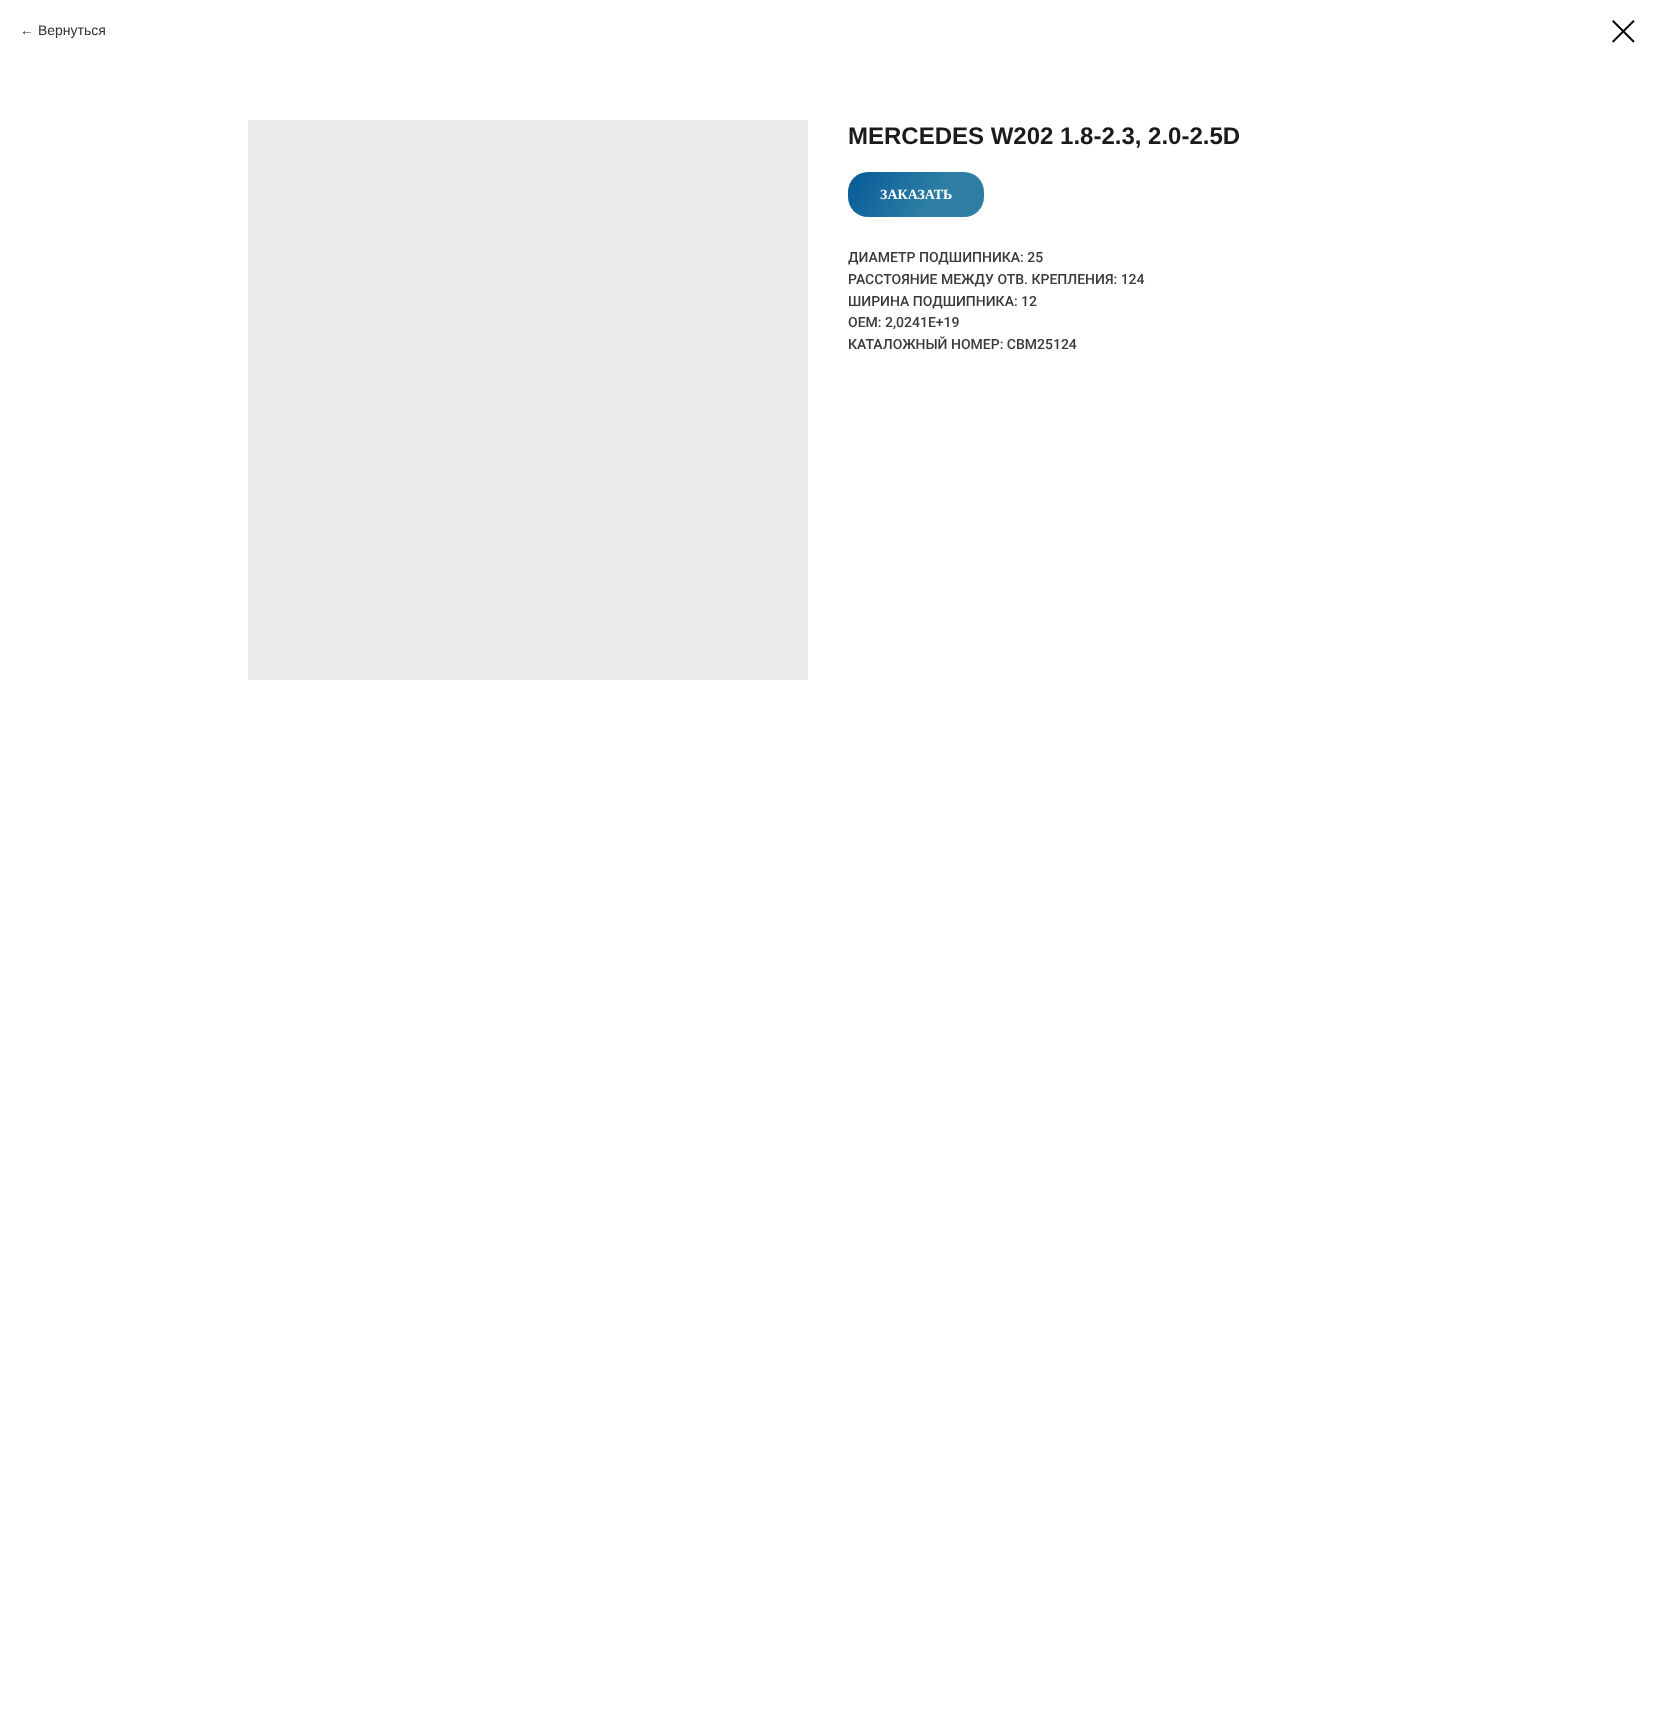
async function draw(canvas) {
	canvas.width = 1655;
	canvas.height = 1728;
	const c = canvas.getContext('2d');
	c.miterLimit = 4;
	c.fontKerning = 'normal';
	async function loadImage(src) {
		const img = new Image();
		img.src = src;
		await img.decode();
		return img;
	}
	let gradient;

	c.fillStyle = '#fff';
	c.fillRect(0, 0, 1655, 1728);
	c.font = '14px Liberation Sans';
	c.fillStyle = '#333';
	c.fillText('← Вернуться', 20, 35);
	c.drawImage(await loadImage('img1.png'), 1612, 20, 23, 23);
	c.fillStyle = '#ebebeb';
	c.fillRect(248, 120, 560, 560);
	c.font = 'bold 24px Liberation Sans';
	c.fillStyle = '#1b1b1b';
	c.fillText('MERCEDES W202 1.8-2.3, 2.0-2.5D', 848, 144);
	gradient = c.createLinearGradient(858, 157, 974, 232);
	gradient.addColorStop(0, '#065b98');
	gradient.addColorStop(0.63, '#2e7ea4');
	c.fillStyle = gradient;
	c.beginPath();
	c.roundRect(848, 172, 136, 45, 20);
	c.fill();
	c.font = 'bold 14px Liberation Serif';
	c.fillStyle = '#fff';
	c.fillText('ЗАКАЗАТЬ', 880, 199);
	c.font = '500 14px Roboto';
	c.fillStyle = '#3a3a3a';
	for (const [text, x, y] of [
		['ДИАМЕТР ПОДШИПНИКА: 25', 848, 262],
		['РАССТОЯНИЕ МЕЖДУ ОТВ. КРЕПЛЕНИЯ: 124', 848, 284],
		['ШИРИНА ПОДШИПНИКА: 12', 848, 306],
		['OEM: 2,0241E+19', 848, 327],
		['КАТАЛОЖНЫЙ НОМЕР: CBM25124', 848, 349],
	]) {
		c.fillText(text, x, y);
	}
}

draw(document.querySelector('canvas'));
